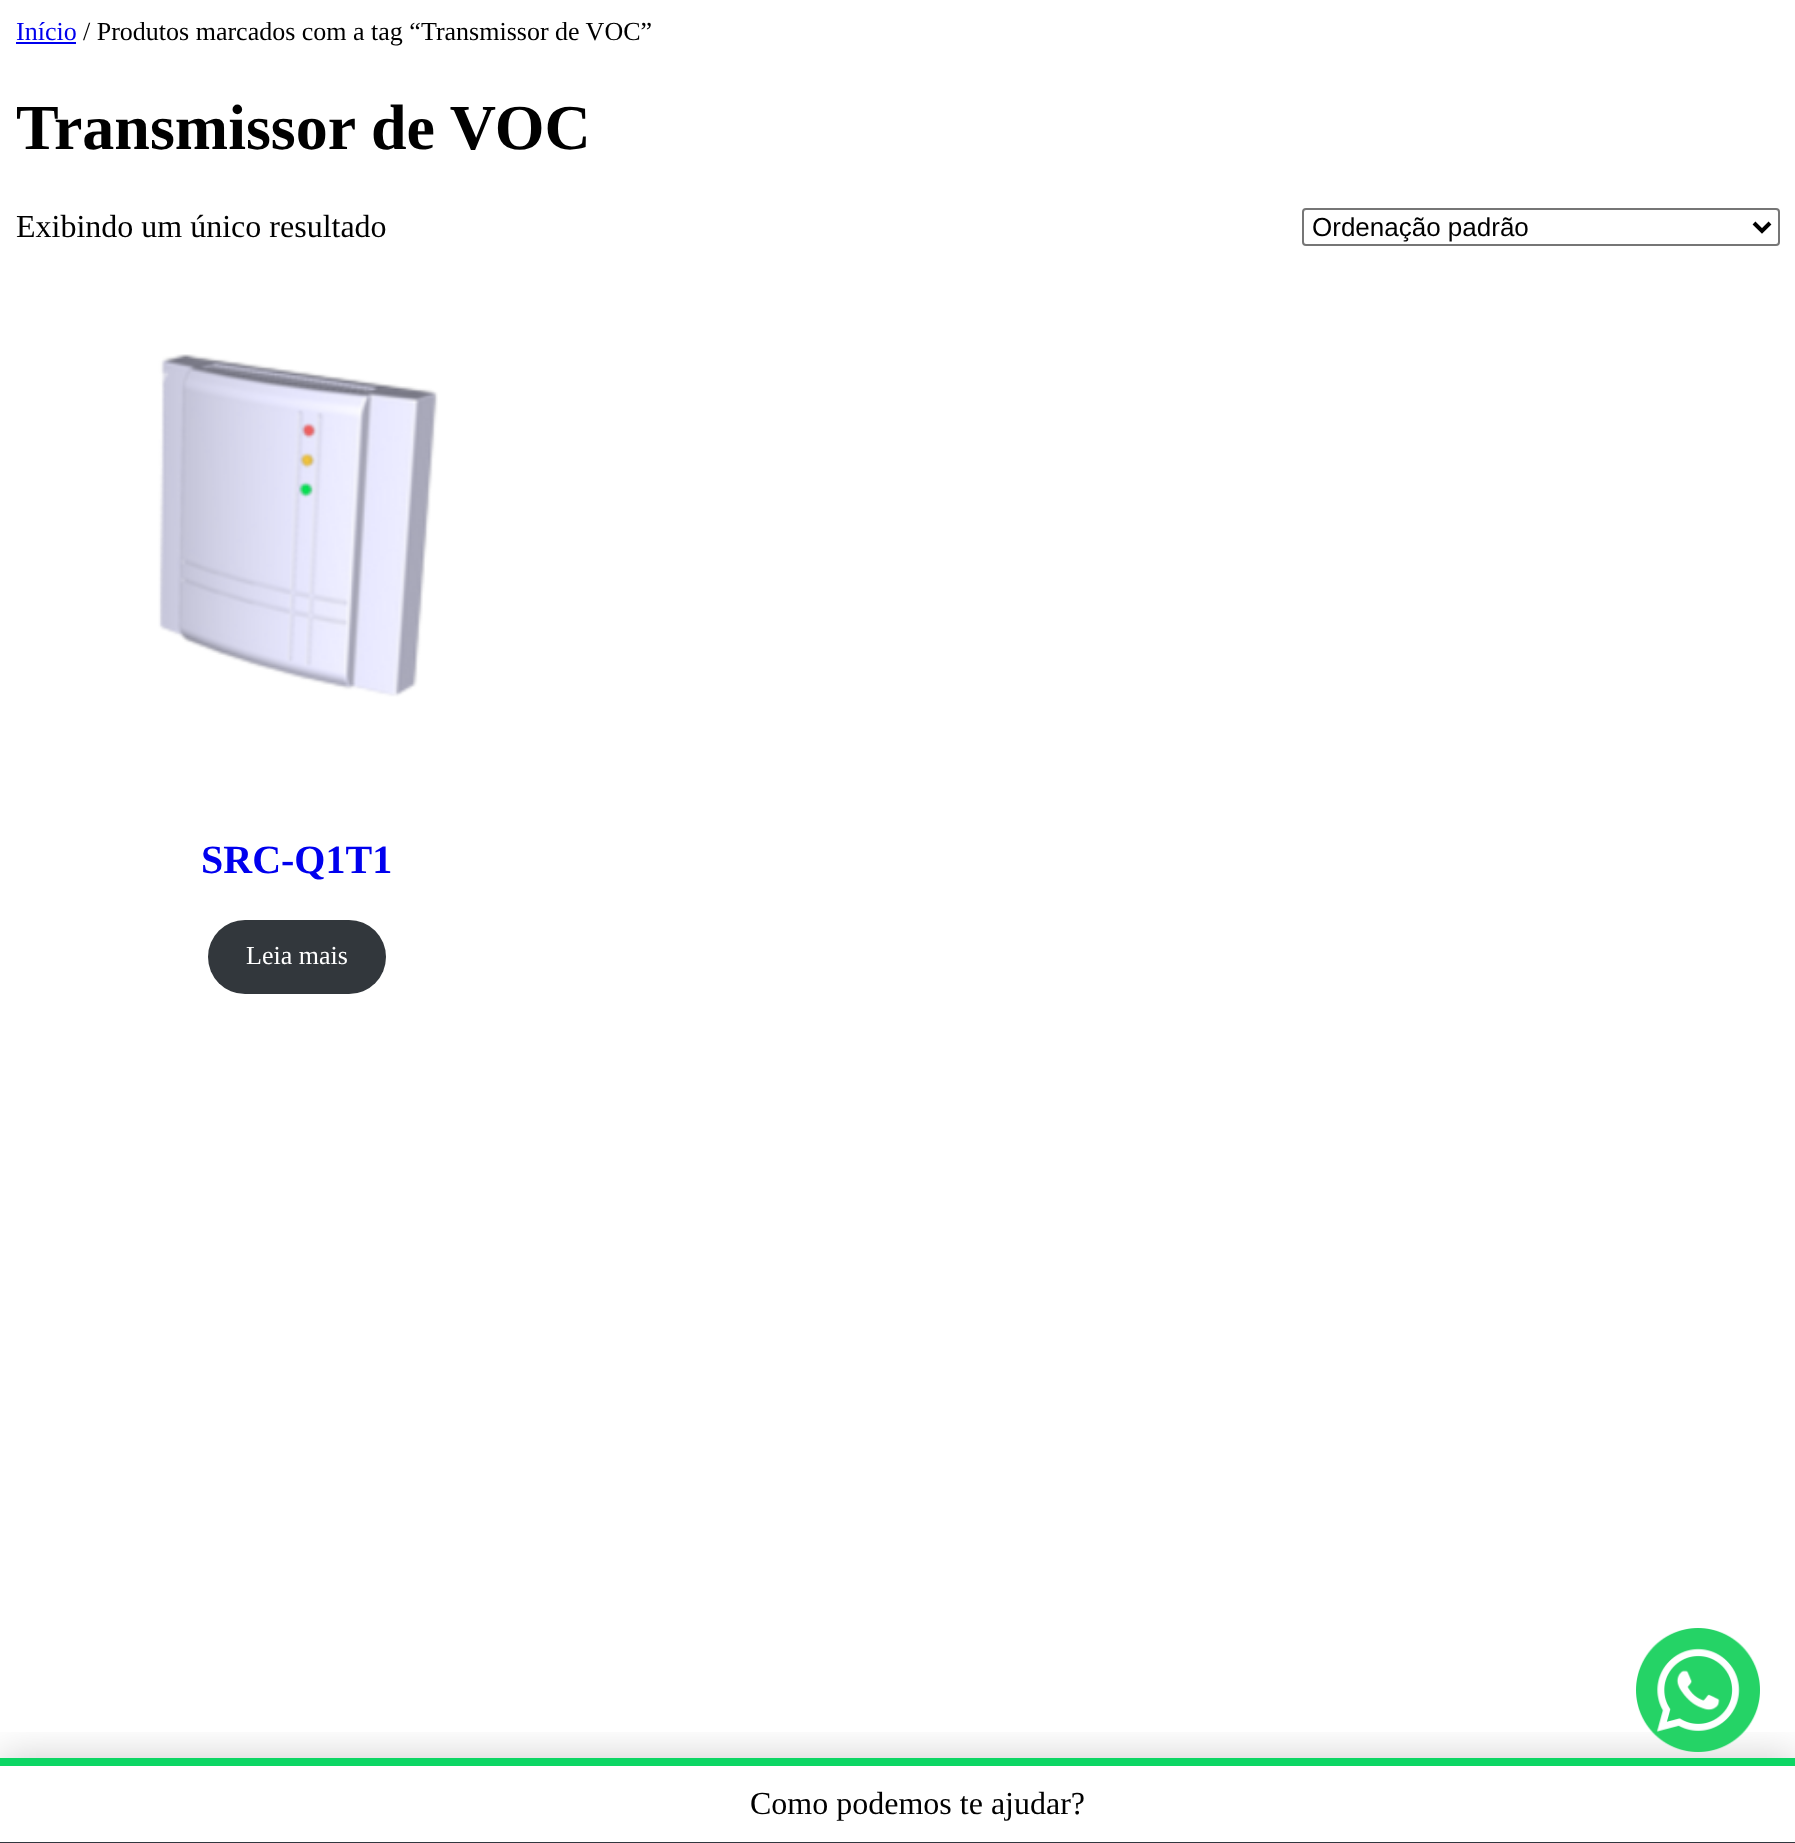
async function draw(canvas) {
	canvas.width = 1795;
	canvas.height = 1843;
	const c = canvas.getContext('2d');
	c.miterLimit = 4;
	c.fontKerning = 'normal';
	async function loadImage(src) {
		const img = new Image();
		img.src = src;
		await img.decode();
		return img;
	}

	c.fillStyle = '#fff';
	c.fillRect(0, 0, 1795, 1843);
	c.font = '26px Liberation Serif';
	c.fillStyle = '#00e';
	c.fillText('Início', 16, 40);
	c.fillRect(16, 42, 60, 2);
	c.fillStyle = '#000';
	c.fillText('/ Produtos marcados com a tag “Transmissor de VOC”', 83, 40);
	c.font = 'bold 64px Liberation Serif';
	c.fillText('Transmissor de VOC', 16, 149);
	c.font = '32px Liberation Serif';
	c.fillText('Exibindo um único resultado', 16, 237);
	c.beginPath();
	c.roundRect(1303, 209, 476, 36, 3);
	c.strokeStyle = '#767676';
	c.lineWidth = 2;
	c.stroke();
	c.beginPath();
	c.moveTo(1754, 223);
	c.lineTo(1762, 231);
	c.lineTo(1770, 223);
	c.strokeStyle = '#000';
	c.lineWidth = 4;
	c.stroke();
	c.font = '26px Liberation Sans';
	c.fillText('Ordenação padrão', 1312, 236);
	c.drawImage(await loadImage('img1.png'), 158, 354, 280, 343);
	c.font = 'bold 40px Liberation Serif';
	c.fillStyle = '#00e';
	c.fillText('SRC-Q1T1', 201, 873);
	c.fillStyle = '#32373c';
	c.beginPath();
	c.roundRect(208, 920, 178, 74, 37);
	c.fill();
	c.font = '26px Liberation Serif';
	c.fillStyle = '#fff';
	c.fillText('Leia mais', 246, 964);
	c.save();
	c.beginPath();
	c.rect(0, 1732, 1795, 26);
	c.clip();
	c.fillStyle = '#00000033';
	c.filter = 'blur(20px)';
	c.beginPath();
	c.rect(0, 1758, 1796, 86);
	c.fill();
	c.filter = 'none';
	c.restore();
	c.drawImage(await loadImage('img2.png'), 1636, 1628, 124, 124);
	c.fillStyle = '#0cd664';
	c.fillRect(0, 1758, 1795, 8);
	c.fillStyle = '#31373f';
	c.fillRect(0, 1842, 1795, 1);
	c.font = '32px Liberation Serif';
	c.fillStyle = '#000';
	c.fillText('Como podemos te ajudar?', 750, 1814);
}

draw(document.querySelector('canvas'));
